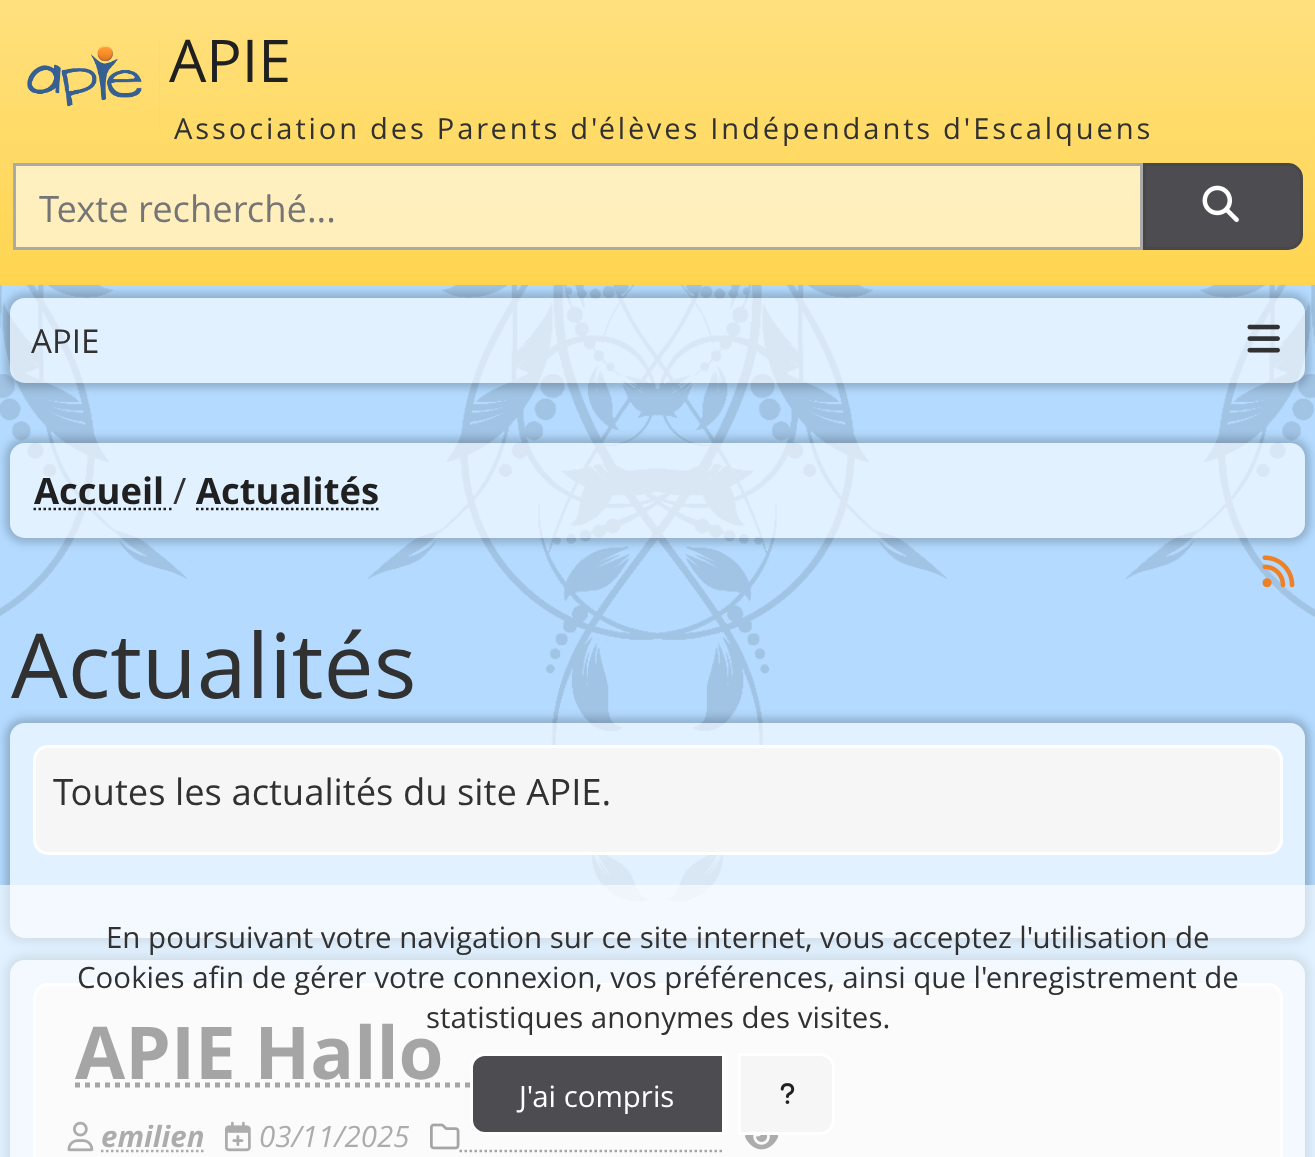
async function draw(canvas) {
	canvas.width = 1315;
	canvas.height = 1157;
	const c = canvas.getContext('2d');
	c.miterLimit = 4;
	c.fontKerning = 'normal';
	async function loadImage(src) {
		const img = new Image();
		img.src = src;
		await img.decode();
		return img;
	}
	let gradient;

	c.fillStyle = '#b4dbff';
	c.fillRect(0, 0, 1315, 1157);
	c.drawImage(await loadImage('img1.png'), 0, 285, 1315, 617);
	gradient = c.createLinearGradient(658, 0, 658, 285);
	gradient.addColorStop(0, '#ffe07d');
	gradient.addColorStop(1, '#ffd550');
	c.fillStyle = gradient;
	c.fillRect(0, 0, 1315, 285);
	c.drawImage(await loadImage('img2.png'), 27, 42, 133, 86);
	c.font = '59px Open Sans';
	c.fillStyle = '#202020';
	c.fillText('APIE', 169, 82);
	c.letterSpacing = '2.9px';
	c.wordSpacing = '-0.5px';
	c.font = '29.1px Open Sans';
	c.fillStyle = '#313131';
	c.fillText('Association des Parents d\'élèves Indépendants d\'Escalquens', 174, 139);
	c.fillStyle = '#ffffff99';
	c.beginPath();
	c.rect(14.5, 164.5, 1127, 84);
	c.fill();
	c.strokeStyle = '#aaa';
	c.lineWidth = 3;
	c.stroke();
	c.letterSpacing = '0px';
	c.wordSpacing = '0px';
	c.font = '36.4px Open Sans';
	c.fillStyle = '#757575';
	c.fillText('Texte recherché...', 39, 222);
	c.fillStyle = '#4d4c50';
	c.beginPath();
	c.roundRect(1144.5, 164.5, 157, 84, [0, 13.5, 13.5, 0]);
	c.fill();
	c.strokeStyle = '#474747';
	c.stroke();
	c.drawImage(await loadImage('img3.png'), 1202, 185, 37, 37);
	c.save();
	c.beginPath();
	c.moveTo(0, 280);
	c.lineTo(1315, 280);
	c.lineTo(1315, 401);
	c.lineTo(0, 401);
	c.closePath();
	c.moveTo(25, 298);
	c.lineTo(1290, 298);
	c.bezierCurveTo(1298.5, 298, 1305, 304.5, 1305, 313);
	c.lineTo(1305, 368);
	c.bezierCurveTo(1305, 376.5, 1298.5, 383, 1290, 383);
	c.lineTo(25, 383);
	c.bezierCurveTo(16.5, 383, 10, 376.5, 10, 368);
	c.lineTo(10, 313);
	c.bezierCurveTo(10, 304.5, 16.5, 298, 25, 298);
	c.closePath();
	c.clip('evenodd');
	c.fillStyle = '#00000033';
	c.filter = 'blur(4px)';
	c.beginPath();
	c.roundRect(5, 293, 1305, 95, 20);
	c.fill();
	c.filter = 'none';
	c.restore();
	c.fillStyle = '#ffffff99';
	c.beginPath();
	c.roundRect(10, 298, 1295, 85, 15);
	c.fill();
	c.font = '33px Open Sans';
	c.fillStyle = '#313131';
	c.fillText('APIE', 31, 353);
	c.drawImage(await loadImage('img4.png'), 1247, 324, 33, 29);
	c.save();
	c.beginPath();
	c.moveTo(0, 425);
	c.lineTo(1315, 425);
	c.lineTo(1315, 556);
	c.lineTo(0, 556);
	c.closePath();
	c.moveTo(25, 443);
	c.lineTo(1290, 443);
	c.bezierCurveTo(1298.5, 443, 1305, 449.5, 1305, 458);
	c.lineTo(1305, 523);
	c.bezierCurveTo(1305, 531.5, 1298.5, 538, 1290, 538);
	c.lineTo(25, 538);
	c.bezierCurveTo(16.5, 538, 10, 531.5, 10, 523);
	c.lineTo(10, 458);
	c.bezierCurveTo(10, 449.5, 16.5, 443, 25, 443);
	c.closePath();
	c.clip('evenodd');
	c.fillStyle = '#00000033';
	c.filter = 'blur(4px)';
	c.beginPath();
	c.roundRect(5, 438, 1305, 105, 20);
	c.fill();
	c.filter = 'none';
	c.restore();
	c.fillStyle = '#ffffff99';
	c.beginPath();
	c.roundRect(10, 443, 1295, 95, 15);
	c.fill();
	c.font = 'bold 36.4px Open Sans';
	c.fillStyle = '#202020';
	c.fillText('Accueil', 34, 504);
	c.beginPath();
	c.moveTo(33.5, 509);
	c.lineTo(164, 509);
	c.strokeStyle = '#202020';
	c.lineWidth = 2.5;
	c.setLineDash([2.5, 2.5]);
	c.stroke();
	c.font = '36.4px Open Sans';
	c.fillStyle = '#313131';
	c.fillText('/', 173, 504);
	c.beginPath();
	c.moveTo(164, 509);
	c.lineTo(166, 509);
	c.moveTo(169, 509);
	c.lineTo(171.5, 509);
	c.setLineDash([]);
	c.stroke();
	c.font = 'bold 36.4px Open Sans';
	c.fillStyle = '#202020';
	c.fillText('Actualités', 196, 504);
	c.beginPath();
	c.moveTo(196, 509);
	c.lineTo(379, 509);
	c.setLineDash([2.5, 2.5]);
	c.stroke();
	c.drawImage(await loadImage('img5.png'), 1262, 555, 33, 33);
	c.font = '89.5px Open Sans';
	c.fillStyle = '#313131';
	c.fillText('Actualités', 11, 698);
	c.save();
	c.beginPath();
	c.moveTo(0, 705);
	c.lineTo(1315, 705);
	c.lineTo(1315, 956);
	c.lineTo(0, 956);
	c.closePath();
	c.moveTo(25, 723);
	c.lineTo(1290, 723);
	c.bezierCurveTo(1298.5, 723, 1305, 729.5, 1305, 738);
	c.lineTo(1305, 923);
	c.bezierCurveTo(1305, 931.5, 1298.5, 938, 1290, 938);
	c.lineTo(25, 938);
	c.bezierCurveTo(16.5, 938, 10, 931.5, 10, 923);
	c.lineTo(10, 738);
	c.bezierCurveTo(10, 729.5, 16.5, 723, 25, 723);
	c.closePath();
	c.clip('evenodd');
	c.fillStyle = '#00000033';
	c.filter = 'blur(4px)';
	c.beginPath();
	c.roundRect(5, 718, 1305, 225, 20);
	c.fill();
	c.filter = 'none';
	c.restore();
	c.fillStyle = '#ffffff99';
	c.beginPath();
	c.roundRect(10, 723, 1295, 215, 15);
	c.fill();
	c.fillStyle = '#f6f6f6';
	c.beginPath();
	c.roundRect(34.5, 746.5, 1247, 107, 13.5);
	c.fill();
	c.strokeStyle = '#fff';
	c.lineWidth = 3;
	c.setLineDash([]);
	c.stroke();
	c.font = '36.4px Open Sans';
	c.fillStyle = '#313131';
	c.fillText('Toutes les actualités du site APIE.', 53, 805);
	c.save();
	c.beginPath();
	c.moveTo(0, 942);
	c.lineTo(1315, 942);
	c.lineTo(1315, 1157);
	c.lineTo(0, 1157);
	c.closePath();
	c.moveTo(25, 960);
	c.lineTo(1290, 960);
	c.bezierCurveTo(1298.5, 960, 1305, 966.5, 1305, 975);
	c.lineTo(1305, 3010);
	c.bezierCurveTo(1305, 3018.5, 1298.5, 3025, 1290, 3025);
	c.lineTo(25, 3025);
	c.bezierCurveTo(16.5, 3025, 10, 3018.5, 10, 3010);
	c.lineTo(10, 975);
	c.bezierCurveTo(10, 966.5, 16.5, 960, 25, 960);
	c.closePath();
	c.clip('evenodd');
	c.fillStyle = '#00000033';
	c.filter = 'blur(4px)';
	c.beginPath();
	c.roundRect(5, 955, 1305, 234, 20);
	c.fill();
	c.filter = 'none';
	c.restore();
	c.fillStyle = '#ffffff99';
	c.beginPath();
	c.roundRect(10, 960, 1295, 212, 15);
	c.fill();
	c.fillStyle = '#f6f6f6';
	c.beginPath();
	c.roundRect(34.5, 984.5, 1247, 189, 13.5);
	c.fill();
	c.stroke();
	c.font = 'bold 72.75px Open Sans';
	c.fillStyle = '#202020';
	c.fillText('APIE Hallo', 75, 1079);
	c.beginPath();
	c.moveTo(75, 1085);
	c.lineTo(639.5, 1085);
	c.strokeStyle = '#202020';
	c.lineWidth = 5;
	c.setLineDash([5, 5]);
	c.stroke();
	c.drawImage(await loadImage('img6.png'), 67, 1121, 27, 31);
	c.font = 'italic bold 29.45px Open Sans';
	c.fillStyle = '#313131';
	c.fillText('emilien', 101, 1147);
	c.beginPath();
	c.moveTo(101, 1151);
	c.lineTo(204.5, 1151);
	c.strokeStyle = '#323133';
	c.lineWidth = 2.5;
	c.setLineDash([2.5, 2.5]);
	c.stroke();
	c.drawImage(await loadImage('img7.png'), 225, 1121, 26, 31);
	c.font = 'italic 29.45px Open Sans';
	c.fillText('03/11/2025', 259, 1147);
	c.drawImage(await loadImage('img8.png'), 430, 1123, 30, 27);
	c.beginPath();
	c.moveTo(459.5, 1151);
	c.lineTo(723, 1151);
	c.strokeStyle = '#202020';
	c.stroke();
	c.drawImage(await loadImage('img9.png'), 745, 1135, 34, 15);
	c.fillStyle = '#ffffff99';
	c.fillRect(0, 885, 1315, 272);
	c.font = '29.45px Open Sans';
	c.fillStyle = '#313131';
	for (const [text, x, y] of [
		['En poursuivant votre navigation sur ce site internet, vous acceptez l\'utilisation de', 106, 948],
		['Cookies afin de gérer votre connexion, vos préférences, ainsi que l\'enregistrement de', 77, 988],
		['statistiques anonymes des visites.', 426, 1028],
	]) {
		c.fillText(text, x, y);
	}
	c.fillStyle = '#4d4c50';
	c.beginPath();
	c.roundRect(471.5, 1054.5, 252, 79, [13.5, 0, 0, 13.5]);
	c.fill();
	c.strokeStyle = '#fff';
	c.lineWidth = 3;
	c.setLineDash([]);
	c.stroke();
	c.fillStyle = '#fff';
	c.fillText('J\'ai compris', 519, 1107);
	c.fillStyle = '#f6f6f6';
	c.beginPath();
	c.roundRect(739.5, 1054.5, 94, 79, [0, 13.5, 13.5, 0]);
	c.fill();
	c.stroke();
	c.drawImage(await loadImage('img10.png'), 780, 1083, 15, 21);
}

draw(document.querySelector('canvas'));
